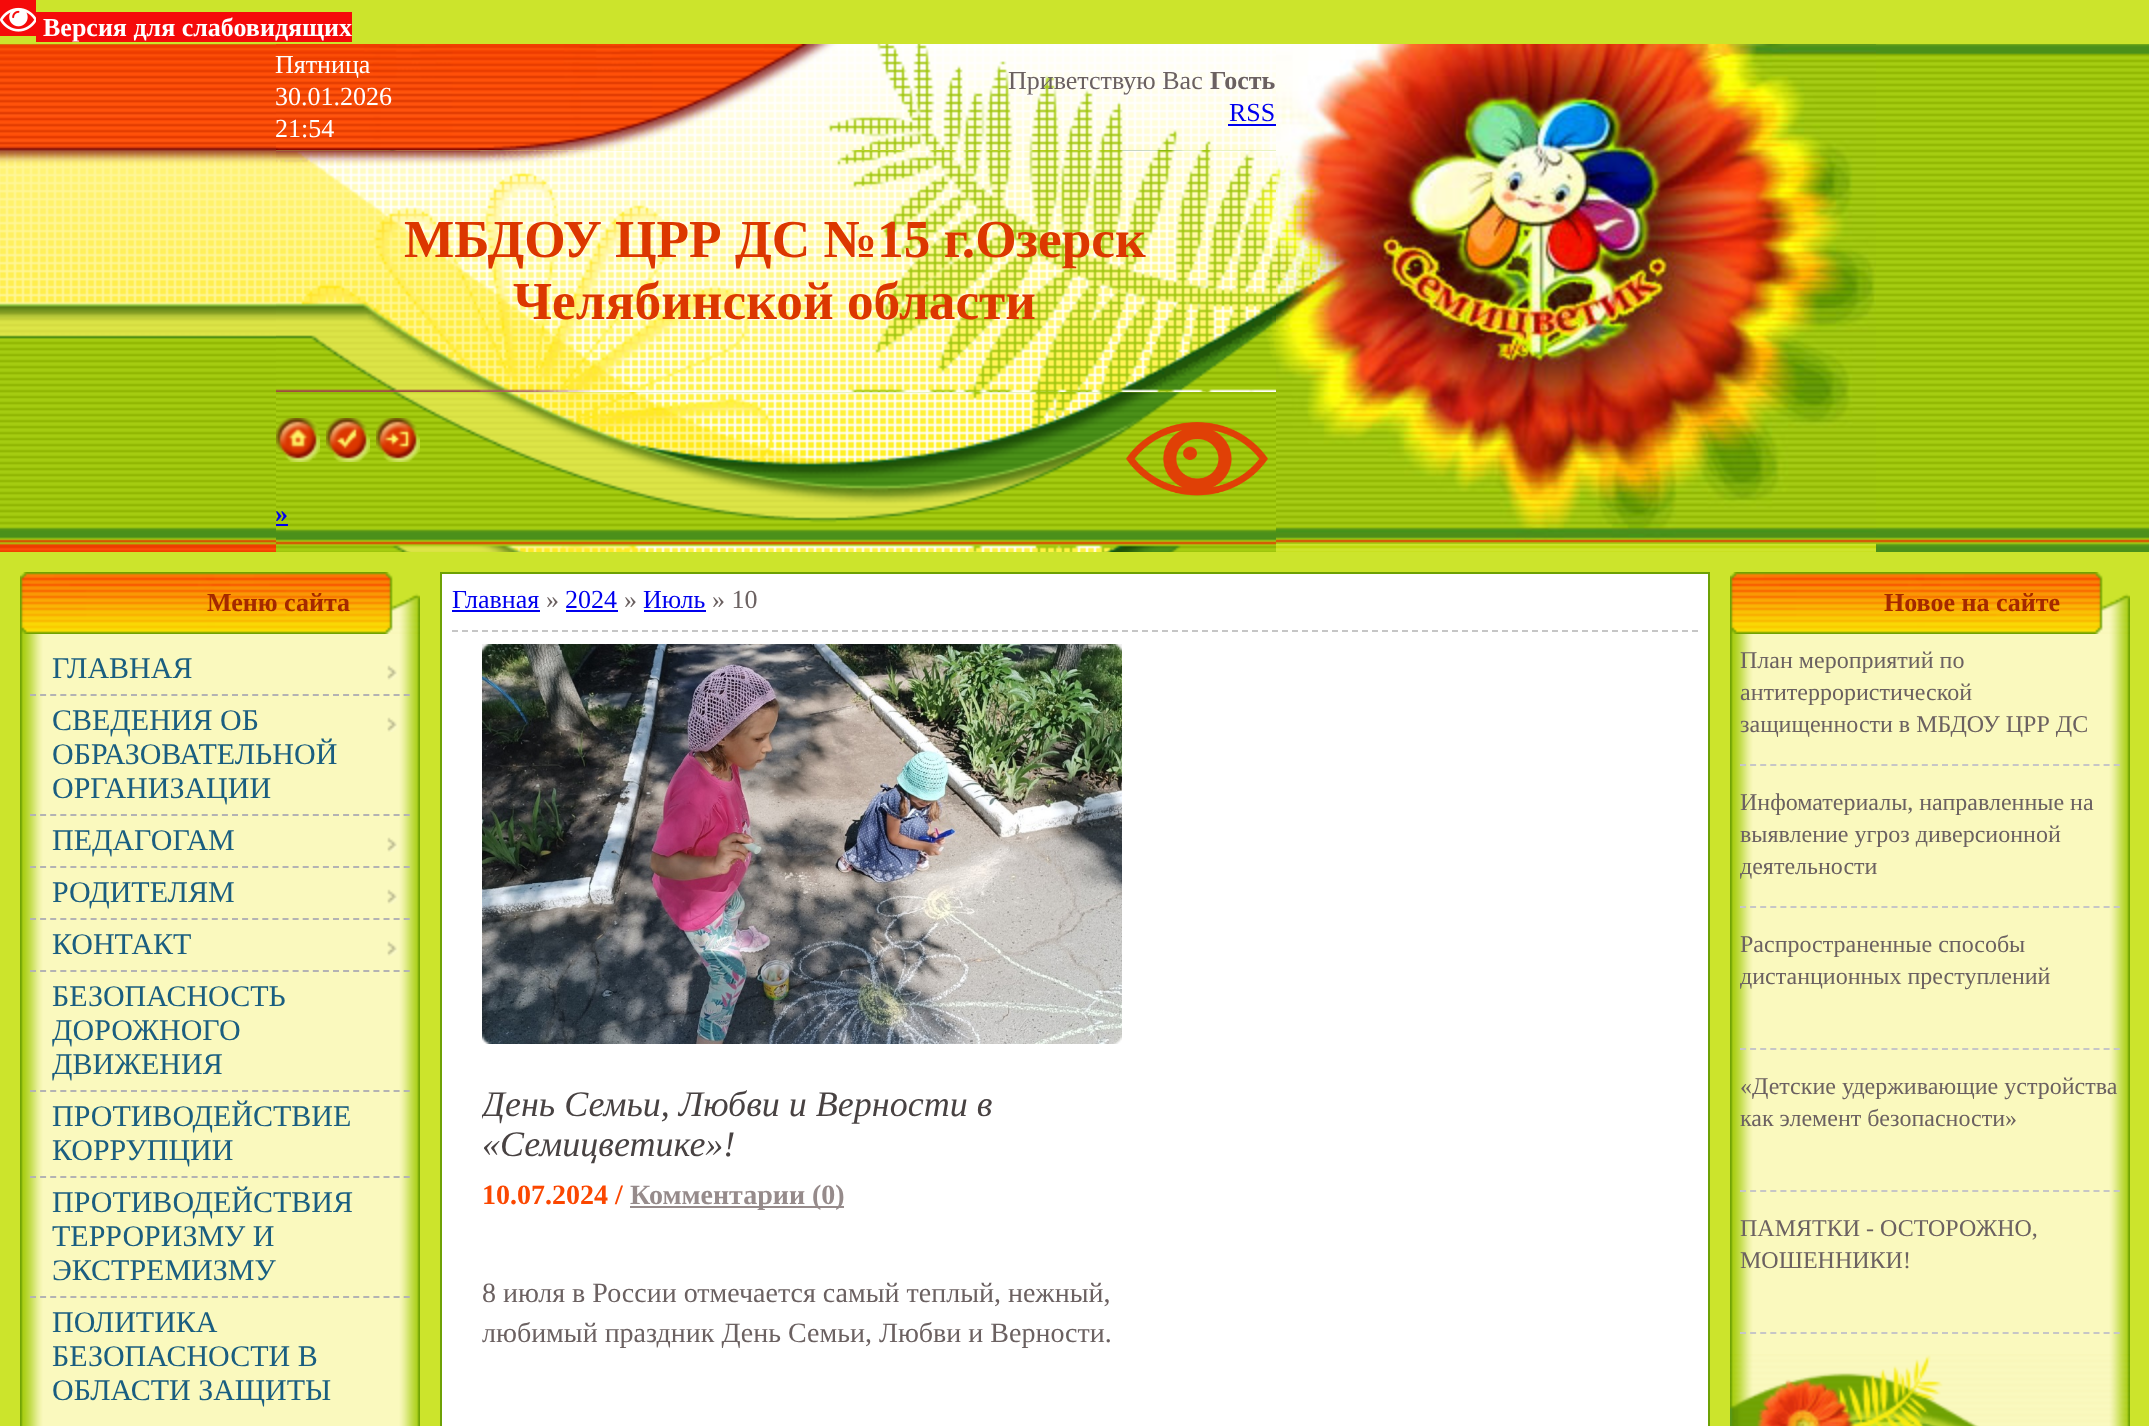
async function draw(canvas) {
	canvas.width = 2149;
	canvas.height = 1426;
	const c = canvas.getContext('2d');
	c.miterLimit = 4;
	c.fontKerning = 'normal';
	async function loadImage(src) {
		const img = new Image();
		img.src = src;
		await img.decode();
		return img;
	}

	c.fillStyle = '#cce42c';
	c.fillRect(0, 0, 2149, 1426);
	c.fillStyle = '#f50a0a';
	c.fillRect(0, 0, 36, 36);
	c.drawImage(await loadImage('img1.png'), 0, 7, 36, 25);
	c.fillRect(36, 12, 316, 30);
	c.font = 'bold 26px Liberation Serif';
	c.fillStyle = '#fff';
	c.fillText('Версия для слабовидящих', 43, 36);
	c.drawImage(await loadImage('img2.png'), 1276, 544, 600, 8);
	c.drawImage(await loadImage('img3.png'), 0, 44, 276, 508);
	c.drawImage(await loadImage('img4.png'), 276, 44, 1000, 106);
	c.font = '26px Liberation Serif';
	for (const [text, x, y] of [
		['Пятница', 275, 73],
		['30.01.2026', 275, 105],
		['21:54', 275, 137],
	]) {
		c.fillText(text, x, y);
	}
	c.fillStyle = '#6b6161';
	c.fillText('Приветствую Вас', 1008, 89);
	c.font = 'bold 26px Liberation Serif';
	c.fillText('Гость', 1210, 89);
	c.font = '26px Liberation Serif';
	c.fillStyle = '#00e';
	c.fillText('RSS', 1229, 121);
	c.fillRect(1228, 124, 48, 2);
	c.drawImage(await loadImage('img5.png'), 1276, 44, 600, 500);
	c.drawImage(await loadImage('img6.png'), 1876, 44, 273, 508);
	c.drawImage(await loadImage('img7.png'), 276, 150, 1000, 242);
	c.font = 'bold 53.3px Liberation Serif';
	c.fillStyle = '#dc3700';
	c.fillText('МБДОУ ЦРР ДС №15 г.Озерск', 404, 257);
	c.fillText('Челябинской области', 513, 319);
	c.drawImage(await loadImage('img8.png'), 276, 392, 1000, 160);
	c.drawImage(await loadImage('img9.png'), 276, 418, 44, 44);
	c.drawImage(await loadImage('img10.png'), 326, 418, 44, 44);
	c.drawImage(await loadImage('img11.png'), 376, 418, 44, 44);
	c.drawImage(await loadImage('img12.png'), 1126, 422, 142, 74);
	c.font = 'bold 26px Liberation Serif';
	c.fillStyle = '#00e';
	c.fillText('»', 275, 522);
	c.fillRect(276, 524, 12, 2);
	c.drawImage(await loadImage('img13.png'), 20, 572, 400, 62);
	c.fillStyle = '#a42900';
	c.fillText('Меню сайта', 207, 611);
	c.drawImage(await loadImage('img14.png'), 20, 634, 400, 792);
	c.drawImage(await loadImage('img15.png'), 387, 665, 11, 15);
	c.beginPath();
	c.moveTo(30, 695);
	c.lineTo(410, 695);
	c.strokeStyle = '#b3b3b3';
	c.lineWidth = 2;
	c.setLineDash([6, 4.1]);
	c.stroke();
	c.font = '30px Liberation Serif';
	c.fillStyle = '#1a5e80';
	c.fillText('ГЛАВНАЯ', 52, 678);
	c.drawImage(await loadImage('img15.png'), 387, 717, 11, 15);
	c.beginPath();
	c.moveTo(30, 815);
	c.lineTo(410, 815);
	c.stroke();
	for (const [text, x, y] of [
		['СВЕДЕНИЯ ОБ', 52, 730],
		['ОБРАЗОВАТЕЛЬНОЙ', 52, 764],
		['ОРГАНИЗАЦИИ', 52, 798],
	]) {
		c.fillText(text, x, y);
	}
	c.drawImage(await loadImage('img15.png'), 387, 837, 11, 15);
	c.beginPath();
	c.moveTo(30, 867);
	c.lineTo(410, 867);
	c.stroke();
	c.fillText('ПЕДАГОГАМ', 52, 850);
	c.drawImage(await loadImage('img15.png'), 387, 889, 11, 15);
	c.beginPath();
	c.moveTo(30, 919);
	c.lineTo(410, 919);
	c.stroke();
	c.fillText('РОДИТЕЛЯМ', 52, 902);
	c.drawImage(await loadImage('img15.png'), 387, 941, 11, 15);
	c.beginPath();
	c.moveTo(30, 971);
	c.lineTo(410, 971);
	c.stroke();
	c.fillText('КОНТАКТ', 52, 954);
	c.beginPath();
	c.moveTo(30, 1091);
	c.lineTo(410, 1091);
	c.stroke();
	for (const [text, x, y] of [
		['БЕЗОПАСНОСТЬ', 52, 1006],
		['ДОРОЖНОГО', 52, 1040],
		['ДВИЖЕНИЯ', 52, 1074],
	]) {
		c.fillText(text, x, y);
	}
	c.beginPath();
	c.moveTo(30, 1177);
	c.lineTo(410, 1177);
	c.stroke();
	c.fillText('ПРОТИВОДЕЙСТВИЕ', 52, 1126);
	c.fillText('КОРРУПЦИИ', 52, 1160);
	c.beginPath();
	c.moveTo(30, 1297);
	c.lineTo(410, 1297);
	c.stroke();
	for (const [text, x, y] of [
		['ПРОТИВОДЕЙСТВИЯ', 52, 1212],
		['ТЕРРОРИЗМУ И', 52, 1246],
		['ЭКСТРЕМИЗМУ', 52, 1280],
		['ПОЛИТИКА', 52, 1332],
		['БЕЗОПАСНОСТИ В', 52, 1366],
		['ОБЛАСТИ ЗАЩИТЫ', 52, 1400],
	]) {
		c.fillText(text, x, y);
	}
	c.strokeStyle = '#6da104';
	c.setLineDash([]);
	c.strokeRect(441, 573, 1268, 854);
	c.fillStyle = '#fff';
	c.fillRect(442, 574, 1266, 852);
	c.font = '26px Liberation Serif';
	c.fillStyle = '#00e';
	c.fillText('Главная', 452, 608);
	c.fillRect(452, 610, 88, 2);
	c.fillStyle = '#6b6161';
	c.fillText('»', 546, 608);
	c.fillStyle = '#00e';
	c.fillText('2024', 565, 608);
	c.fillRect(566, 610, 52, 2);
	c.fillStyle = '#6b6161';
	c.fillText('»', 624, 608);
	c.fillStyle = '#00e';
	c.fillText('Июль', 643, 608);
	c.fillRect(644, 610, 62, 2);
	c.fillStyle = '#6b6161';
	c.fillText('» 10', 712, 608);
	c.beginPath();
	c.moveTo(452, 631);
	c.lineTo(1698, 631);
	c.strokeStyle = '#c6c6c6';
	c.setLineDash([6, 4]);
	c.stroke();
	c.drawImage(await loadImage('img16.png'), 482, 644, 640, 400);
	c.drawImage(await loadImage('img17.png'), 482, 644, 10, 10);
	c.drawImage(await loadImage('img18.png'), 1112, 644, 10, 10);
	c.drawImage(await loadImage('img19.png'), 482, 1034, 10, 10);
	c.drawImage(await loadImage('img20.png'), 1113, 1035, 9, 9);
	c.save();
	c.beginPath();
	c.rect(482, 1044, 640, 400);
	c.clip();
	c.font = 'italic 36px Liberation Serif';
	c.fillStyle = '#484242';
	c.fillText('День Семьи, Любви и Верности в', 482, 1116);
	c.restore();
	c.font = 'italic 36px Liberation Serif';
	c.fillStyle = '#484242';
	c.fillText('«Семицветике»!', 482, 1156);
	c.font = 'bold 28px Liberation Serif';
	c.fillStyle = '#fb4700';
	c.fillText('10.07.2024 /', 482, 1204);
	c.fillStyle = '#968b8b';
	c.fillRect(630, 1206, 214, 2);
	c.fillText('Комментарии (0)', 630, 1204);
	c.font = '28px Liberation Serif';
	c.fillStyle = '#6b6161';
	c.fillText('8 июля в России отмечается самый теплый, нежный,', 482, 1302);
	c.fillText('любимый праздник День Семьи, Любви и Верности.', 482, 1342);
	c.drawImage(await loadImage('img13.png'), 1730, 572, 400, 62);
	c.font = 'bold 26px Liberation Serif';
	c.fillStyle = '#a42900';
	c.fillText('Новое на сайте', 1884, 611);
	c.drawImage(await loadImage('img21.png'), 1730, 634, 400, 720);
	c.beginPath();
	c.moveTo(1740, 765);
	c.lineTo(2120, 765);
	c.setLineDash([6, 4.1]);
	c.stroke();
	c.font = '24px Liberation Serif';
	c.fillStyle = '#6b6161';
	for (const [text, x, y] of [
		['План мероприятий по', 1740, 668],
		['антитеррористической', 1740, 700],
		['защищенности в МБДОУ ЦРР ДС', 1740, 732],
	]) {
		c.fillText(text, x, y);
	}
	c.beginPath();
	c.moveTo(1740, 907);
	c.lineTo(2120, 907);
	c.stroke();
	for (const [text, x, y] of [
		['Инфоматериалы, направленные на', 1740, 810],
		['выявление угроз диверсионной', 1740, 842],
		['деятельности', 1740, 874],
	]) {
		c.fillText(text, x, y);
	}
	c.beginPath();
	c.moveTo(1740, 1049);
	c.lineTo(2120, 1049);
	c.stroke();
	c.fillText('Распространенные способы', 1740, 952);
	c.fillText('дистанционных преступлений', 1740, 984);
	c.beginPath();
	c.moveTo(1740, 1191);
	c.lineTo(2120, 1191);
	c.stroke();
	c.fillText('«Детские удерживающие устройства', 1740, 1094);
	c.fillText('как элемент безопасности»', 1740, 1126);
	c.beginPath();
	c.moveTo(1740, 1333);
	c.lineTo(2120, 1333);
	c.stroke();
	c.fillText('ПАМЯТКИ - ОСТОРОЖНО,', 1740, 1236);
	c.fillText('МОШЕННИКИ!', 1740, 1268);
	c.drawImage(await loadImage('img22.png'), 1730, 1354, 400, 72);
}

draw(document.querySelector('canvas'));
